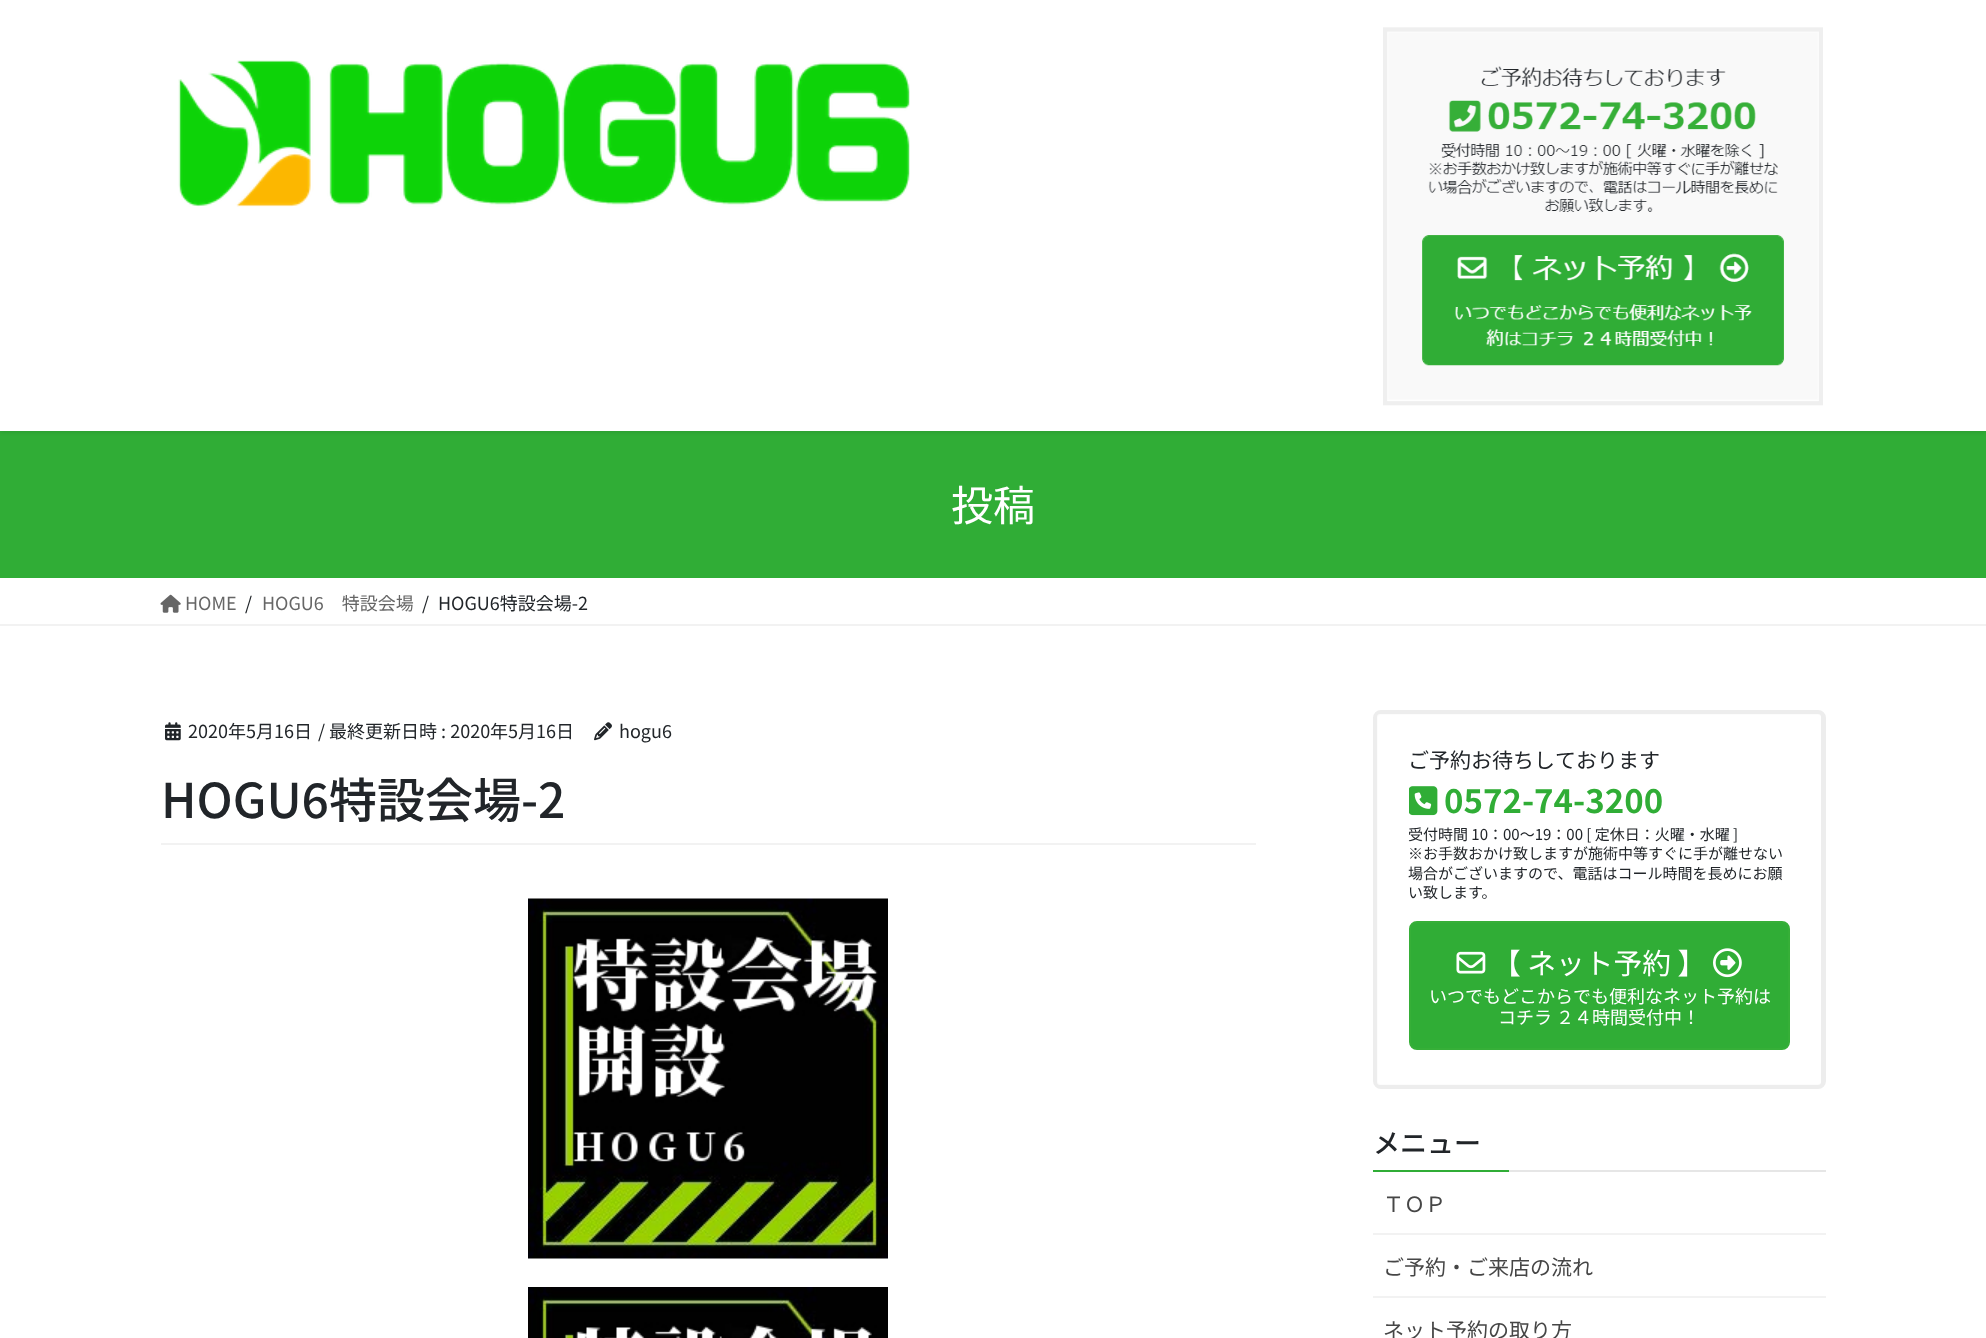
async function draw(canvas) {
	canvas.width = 1986;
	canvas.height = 1338;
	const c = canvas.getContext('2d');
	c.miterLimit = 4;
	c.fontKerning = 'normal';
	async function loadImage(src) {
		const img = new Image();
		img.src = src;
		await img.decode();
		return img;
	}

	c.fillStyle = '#fff';
	c.fillRect(0, 0, 1986, 1338);
	c.fillStyle = '#30ad36';
	c.fillRect(0, 431, 1986, 147);
	c.fillStyle = '#0000001a';
	c.filter = 'blur(2px)';
	c.beginPath();
	c.rect(0, 2, 1986, 430);
	c.fill();
	c.filter = 'none';
	c.fillStyle = '#fff';
	c.fillRect(0, 0, 1986, 431);
	c.drawImage(await loadImage('img1.png'), 178, 60, 732, 147);
	c.drawImage(await loadImage('img2.png'), 1383, 27, 440, 379);
	c.font = '42px Noto Sans JP';
	c.fillText('投稿', 951, 521);
	c.fillStyle = '#f2f2f2';
	c.fillRect(0, 624, 1986, 2);
	c.drawImage(await loadImage('img3.png'), 160, 594, 21, 19);
	c.font = '18px Noto Sans JP';
	c.fillStyle = '#666';
	c.fillText('HOME', 185, 610);
	c.fillStyle = '#212529';
	c.fillText('/', 245, 610);
	c.fillStyle = '#666';
	c.fillText('HOGU6　特設会場', 262, 610);
	c.fillStyle = '#212529';
	c.fillText('/', 422, 610);
	c.fillText('HOGU6特設会場-2', 438, 610);
	c.fillStyle = '#f2f2f2';
	c.fillRect(161, 843, 1095, 2);
	c.drawImage(await loadImage('img4.png'), 165, 722, 16, 19);
	c.fillStyle = '#212529';
	c.fillText('2020年5月16日', 188, 738);
	c.fillText('/ 最終更新日時 : 2020年5月16日', 318, 738);
	c.drawImage(await loadImage('img5.png'), 594, 722, 18, 19);
	c.fillText('hogu6', 619, 738);
	c.font = '500 48px Noto Sans JP';
	c.fillText('HOGU6特設会場-2', 161, 818);
	c.drawImage(await loadImage('img6.png'), 528, 898, 360, 361);
	c.drawImage(await loadImage('img7.png'), 528, 1287, 360, 51);
	c.beginPath();
	c.roundRect(1375.5, 712.5, 448, 374, 5.5);
	c.strokeStyle = '#ededed';
	c.lineWidth = 5;
	c.stroke();
	c.fillStyle = '#ffffffcc';
	c.beginPath();
	c.moveTo(1380, 714);
	c.bezierCurveTo(1378, 714, 1377, 715, 1377, 717);
	c.lineTo(1377, 1082);
	c.bezierCurveTo(1377, 1084, 1378, 1085, 1380, 1085);
	c.lineTo(1818, 1085);
	c.bezierCurveTo(1820, 1085, 1821, 1084, 1821, 1082);
	c.lineTo(1821, 717);
	c.bezierCurveTo(1821, 715, 1820, 714, 1818, 714);
	c.closePath();
	c.moveTo(1379, 716);
	c.lineTo(1379, 1083);
	c.lineTo(1819, 1083);
	c.lineTo(1819, 716);
	c.closePath();
	c.fill('evenodd');
	c.font = '21px Noto Sans JP';
	c.fillStyle = '#212529';
	c.fillText('ご予約お待ちしております', 1408, 768);
	c.drawImage(await loadImage('img8.png'), 1409, 786, 29, 30);
	c.font = 'bold 33px Noto Sans JP';
	c.fillStyle = '#30ad36';
	c.fillText('0572-74-3200', 1444, 813);
	c.font = '15px Noto Sans JP';
	c.fillStyle = '#212529';
	for (const [text, x, y] of [
		['受付時間 10：00～19：00 [ 定休日：火曜・水曜 ]', 1408, 840],
		['※お手数おかけ致しますが施術中等すぐに手が離せない', 1408, 859],
		['場合がございますので、電話はコール時間を長めにお願', 1408, 879],
		['い致します。', 1408, 898],
	]) {
		c.fillText(text, x, y);
	}
	c.fillStyle = '#30ad36';
	c.beginPath();
	c.roundRect(1410, 922, 379, 127, 7);
	c.fill();
	c.strokeStyle = '#36af38';
	c.lineWidth = 2;
	c.stroke();
	c.drawImage(await loadImage('img9.png'), 1456, 951, 30, 23);
	c.font = '28.75px Noto Sans JP';
	c.fillStyle = '#fff';
	c.fillText('【 ネット予約 】', 1492, 974);
	c.drawImage(await loadImage('img10.png'), 1713, 948, 29, 30);
	c.font = '18px Noto Sans JP';
	c.fillText('いつでもどこからでも便利なネット予約は', 1429, 1003);
	c.fillText('コチラ ２４時間受付中！', 1498, 1024);
	c.fillStyle = '#e6e6e6';
	c.fillRect(1509, 1170, 317, 2);
	c.font = '500 27px Noto Sans JP';
	c.fillStyle = '#212529';
	c.fillText('メニュー', 1373, 1153);
	c.fillStyle = '#30ad36';
	c.fillRect(1373, 1170, 136, 2);
	c.fillStyle = '#f2f2f2';
	c.fillRect(1373, 1233, 453, 2);
	c.font = '21px Noto Sans JP';
	c.fillStyle = '#464646';
	c.fillText('ＴＯＰ', 1383, 1212);
	c.fillStyle = '#f2f2f2';
	c.fillRect(1373, 1296, 453, 2);
	c.fillStyle = '#464646';
	c.fillText('ご予約・ご来店の流れ', 1383, 1275);
	c.fillText('ネット予約の取り方', 1383, 1338);
}

draw(document.querySelector('canvas'));
